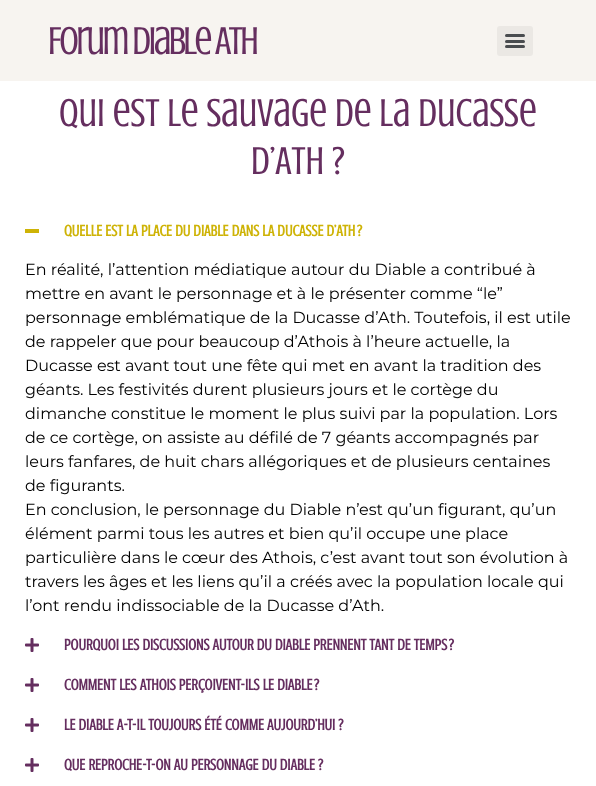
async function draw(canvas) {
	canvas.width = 596;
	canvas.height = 786;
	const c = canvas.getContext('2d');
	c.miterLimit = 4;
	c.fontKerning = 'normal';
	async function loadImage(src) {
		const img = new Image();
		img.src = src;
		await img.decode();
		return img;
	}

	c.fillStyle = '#fff';
	c.fillRect(0, 0, 596, 786);
	c.fillStyle = '#f7f4f0';
	c.fillRect(0, 0, 596, 81);
	c.letterSpacing = '-2.5px';
	c.font = '40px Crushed';
	c.fillStyle = '#652e5f';
	c.fillText('Forum Diable Ath', 48, 54);
	c.fillStyle = '#ebe8e4';
	c.beginPath();
	c.roundRect(497, 26, 36, 30, 3);
	c.fill();
	c.fillStyle = '#494c4f';
	c.beginPath();
	c.roundRect(505, 40, 20, 3, 1.5);
	c.fill();
	c.beginPath();
	c.roundRect(505, 34, 20, 3, 1.5);
	c.fill();
	c.beginPath();
	c.roundRect(505, 45, 20, 3, 1.5);
	c.fill();
	c.letterSpacing = '0px';
	c.fillStyle = '#652e5f';
	c.fillText('Qui est le Sauvage de la Ducasse', 59, 126);
	c.fillText('d’Ath ?', 251, 174);
	c.fillStyle = '#ceb306';
	c.fillRect(25, 229, 14, 4);
	c.font = 'bold 16px Crushed';
	c.fillText('QUELLE EST LA PLACE DU DIABLE DANS LA DUCASSE D’ATH ?', 64, 236);
	c.font = '16px Montserrat';
	c.fillStyle = '#000';
	for (const [text, x, y] of [
		['En réalité, l’attention médiatique autour du Diable a contribué à', 25, 275],
		['mettre en avant le personnage et à le présenter comme “le”', 25, 299],
		['personnage emblématique de la Ducasse d’Ath. Toutefois, il est utile', 25, 323],
		['de rappeler que pour beaucoup d’Athois à l’heure actuelle, la', 25, 347],
		['Ducasse est avant tout une fête qui met en avant la tradition des', 25, 371],
		['géants. Les festivités durent plusieurs jours et le cortège du', 25, 395],
		['dimanche constitue le moment le plus suivi par la population. Lors', 25, 419],
		['de ce cortège, on assiste au défilé de 7 géants accompagnés par', 25, 443],
		['leurs fanfares, de huit chars allégoriques et de plusieurs centaines', 25, 467],
		['de figurants.', 25, 491],
		['En conclusion, le personnage du Diable n’est qu’un figurant, qu’un', 25, 515],
		['élément parmi tous les autres et bien qu’il occupe une place', 25, 539],
		['particulière dans le cœur des Athois, c’est avant tout son évolution à', 25, 563],
		['travers les âges et les liens qu’il a créés avec la population locale qui', 25, 587],
		['l’ont rendu indissociable de la Ducasse d’Ath.', 25, 611],
	]) {
		c.fillText(text, x, y);
	}
	c.drawImage(await loadImage('img1.png'), 25, 638, 14, 14);
	c.font = 'bold 16px Crushed';
	c.fillStyle = '#652e5f';
	c.fillText('POURQUOI LES DISCUSSIONS AUTOUR DU DIABLE PRENNENT TANT DE TEMPS ?', 64, 650);
	c.drawImage(await loadImage('img1.png'), 25, 678, 14, 14);
	c.fillText('COMMENT LES ATHOIS PERÇOIVENT-ILS LE DIABLE ?', 64, 690);
	c.drawImage(await loadImage('img1.png'), 25, 718, 14, 14);
	c.fillText('LE DIABLE A-T-IL TOUJOURS ÉTÉ COMME AUJOURD’HUI ?', 64, 730);
	c.drawImage(await loadImage('img1.png'), 25, 758, 14, 14);
	c.fillText('QUE REPROCHE-T-ON AU PERSONNAGE DU DIABLE ?', 64, 770);
}

draw(document.querySelector('canvas'));
